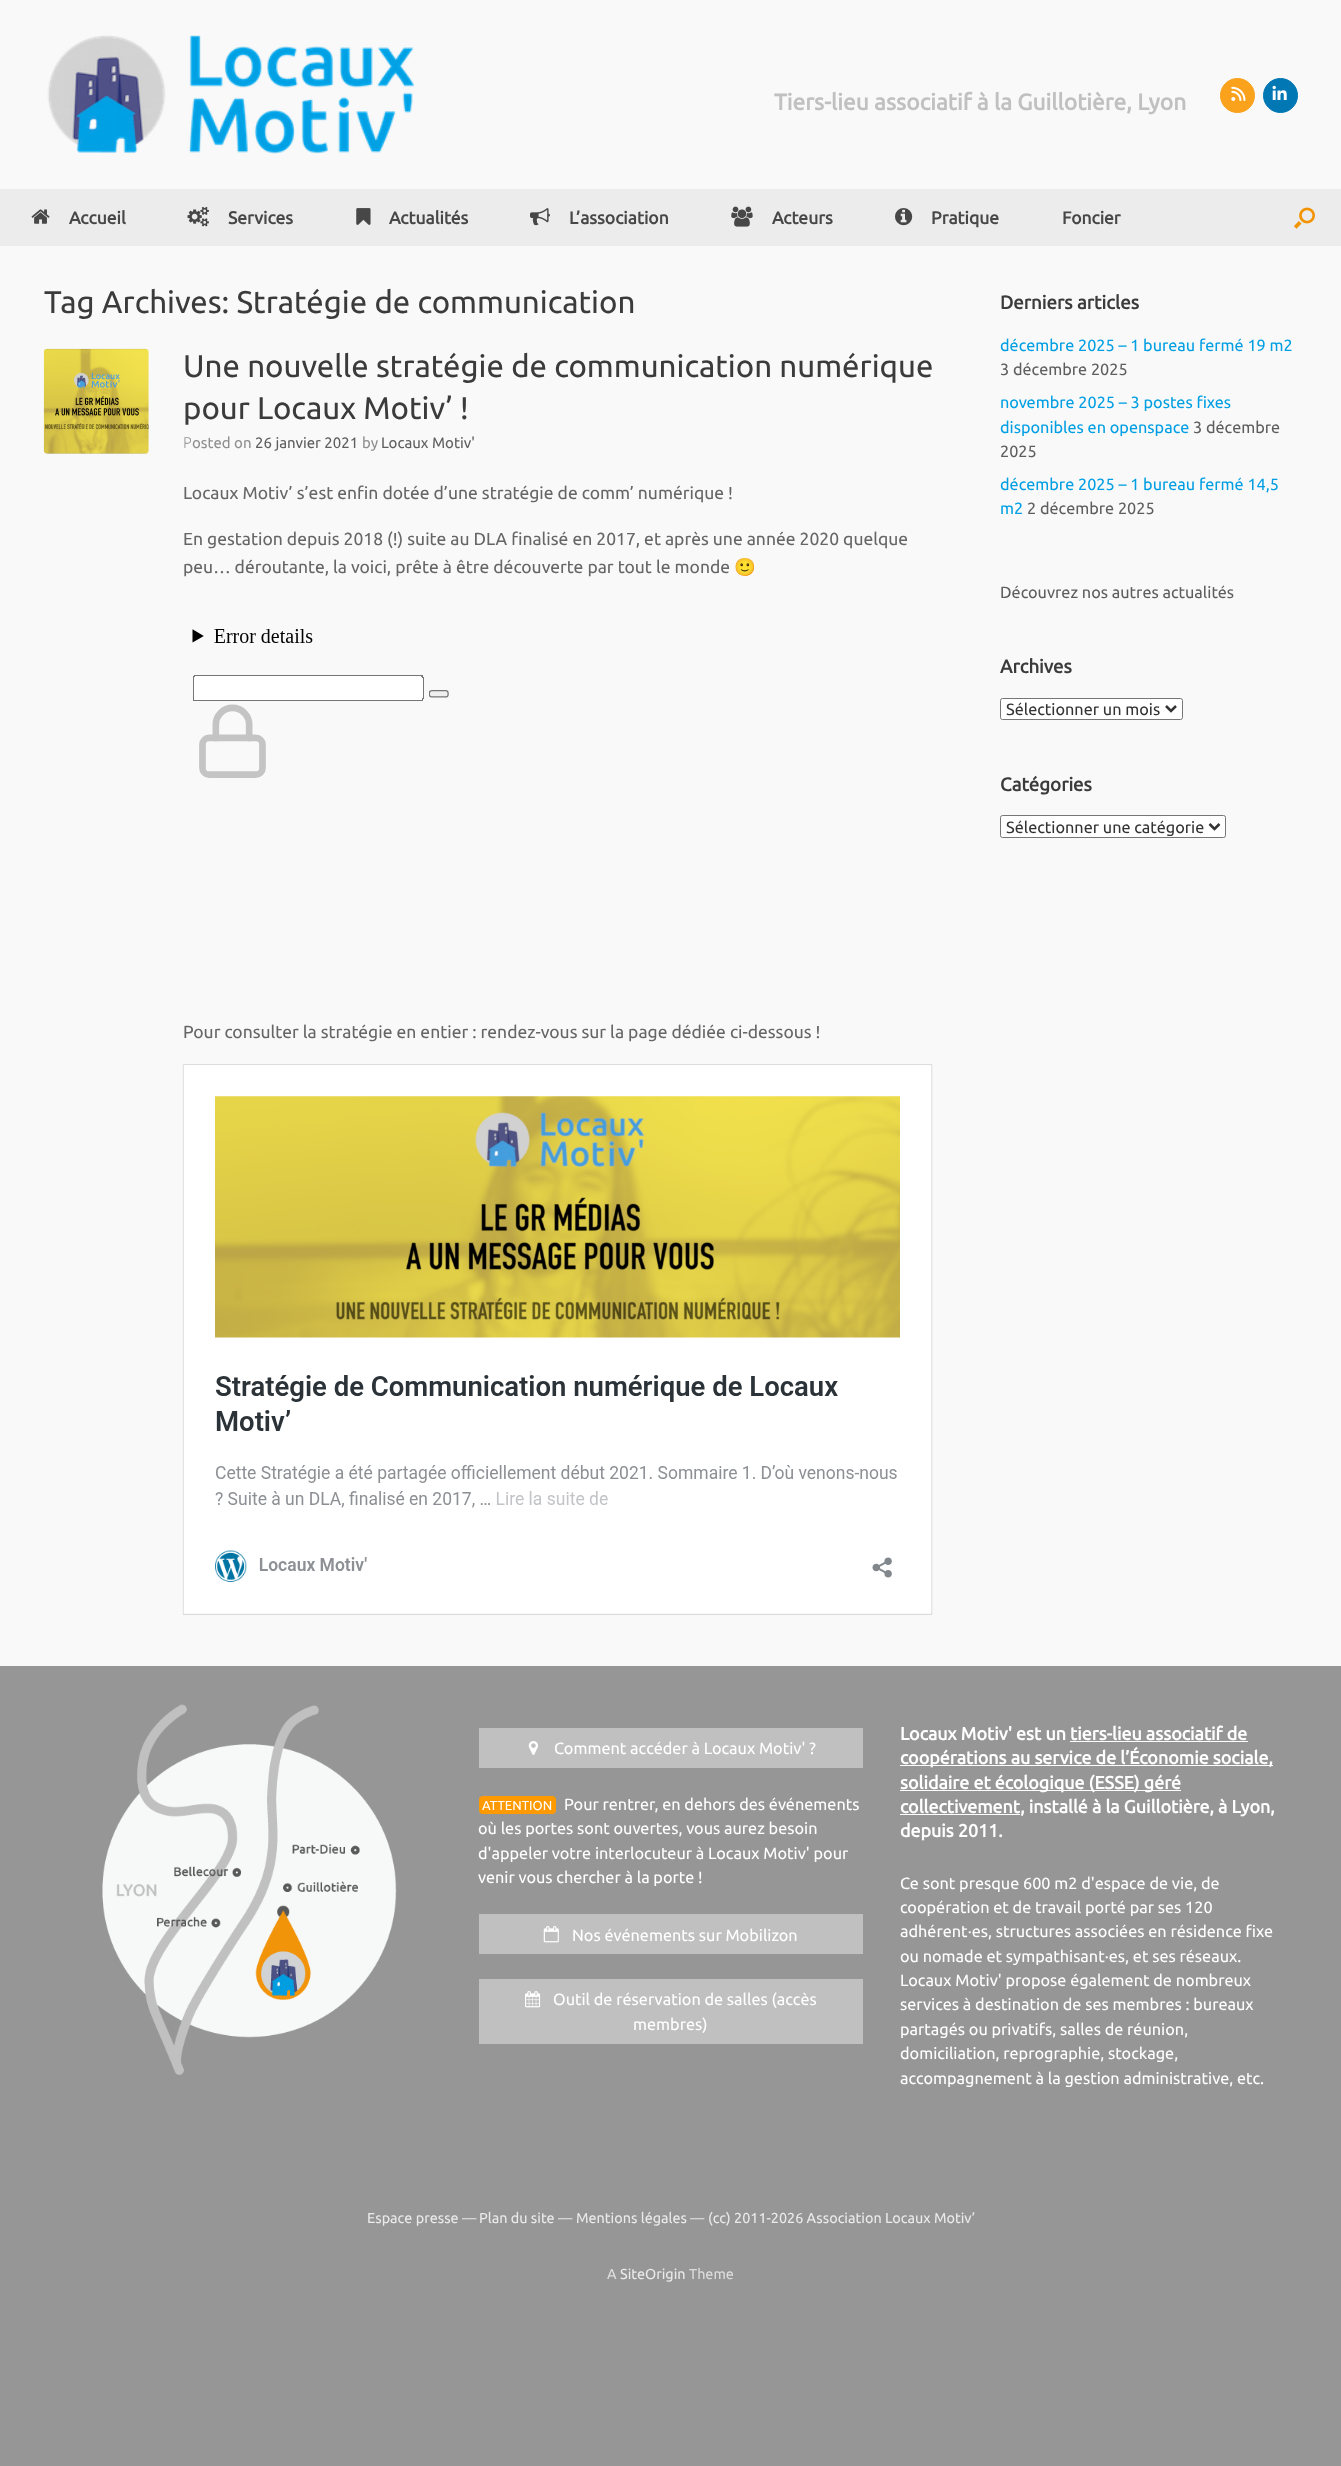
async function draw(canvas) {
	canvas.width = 1341;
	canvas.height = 2466;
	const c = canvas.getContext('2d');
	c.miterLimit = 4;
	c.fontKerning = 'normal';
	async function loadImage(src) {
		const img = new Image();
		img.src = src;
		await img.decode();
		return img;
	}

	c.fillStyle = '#969696';
	c.fillRect(0, 0, 1341, 2466);
	c.fillStyle = '#f9f9f9';
	c.fillRect(0, 0, 1341, 189);
	c.drawImage(await loadImage('img1.png'), 47, 35, 367, 119);
	c.font = 'bold 22.75px Ubuntu';
	c.fillStyle = '#c0c0c0';
	c.fillText('Tiers-lieu associatif à la Guillotière, Lyon', 774, 110);
	c.fillStyle = '#faa21b';
	c.beginPath();
	c.arc(1237.5, 95.5, 17, 0, 2 * Math.PI);
	c.fill();
	c.strokeStyle = '#faa21b';
	c.stroke();
	c.drawImage(await loadImage('img2.png'), 1231, 86, 15, 15);
	c.fillStyle = '#0177b4';
	c.beginPath();
	c.arc(1280.5, 95.5, 17, 0, 2 * Math.PI);
	c.fill();
	c.strokeStyle = '#0177b4';
	c.stroke();
	c.drawImage(await loadImage('img3.png'), 1272, 85, 15, 15);
	c.fillStyle = '#ececec';
	c.fillRect(0, 189, 1341, 57);
	c.drawImage(await loadImage('img4.png'), 31, 209, 19, 15);
	c.font = 'bold 17.5px Ubuntu';
	c.fillStyle = '#474747';
	c.fillText('Accueil', 69, 224);
	c.drawImage(await loadImage('img5.png'), 187, 206, 22, 21);
	c.fillText('Services', 228, 224);
	c.drawImage(await loadImage('img6.png'), 356, 208, 15, 17);
	c.fillText('Actualités', 389, 224);
	c.drawImage(await loadImage('img7.png'), 530, 208, 20, 18);
	c.fillText('L’association', 569, 224);
	c.drawImage(await loadImage('img8.png'), 731, 206, 22, 21);
	c.fillText('Acteurs', 772, 224);
	c.drawImage(await loadImage('img9.png'), 895, 208, 18, 18);
	c.fillText('Pratique', 931, 224);
	c.fillText('Foncier', 1062, 224);
	c.drawImage(await loadImage('img10.png'), 1293, 207, 22, 22);
	c.fillStyle = '#f9f9f9';
	c.fillRect(0, 246, 1341, 1420);
	c.font = '31.25px Ubuntu';
	c.fillStyle = '#3b3b3b';
	c.fillText('Tag Archives: Stratégie de communication', 44, 313);
	c.drawImage(await loadImage('img11.png'), 43, 348, 106, 106);
	c.fillText('Une nouvelle stratégie de communication numérique', 183, 377);
	c.fillText('pour Locaux Motiv’ !', 183, 419);
	c.font = '300 15px Noto Sans';
	c.fillStyle = '#8f8f8f';
	c.fillText('P', 183, 448);
	c.font = '15px Ubuntu';
	c.fillText('osted on', 192, 448);
	c.fillStyle = '#5e5e5e';
	c.fillText('26 janvier 2021', 255, 448);
	c.fillStyle = '#8f8f8f';
	c.fillText('by', 362, 448);
	c.fillStyle = '#5e5e5e';
	c.fillText('Locaux Motiv\'', 381, 448);
	c.font = '17.5px Ubuntu';
	c.fillStyle = '#666';
	for (const [text, x, y] of [
		['Locaux Motiv’ s’est enfin dotée d’une stratégie de comm’ numérique !', 183, 499],
		['En gestation depuis 2018 (!) suite au DLA finalisé en 2017, et après une année 2020 quelque', 183, 545],
		['peu… déroutante, la voici, prête à être découverte par tout le monde', 183, 573],
	]) {
		c.fillText(text, x, y);
	}
	c.font = '17.5px Noto Color Emoji';
	c.fillText('🙂', 734, 573);
	c.drawImage(await loadImage('img12.png'), 192, 629, 257, 149);
	c.font = '17.5px Ubuntu';
	c.fillText('Pour consulter la stratégie en entier : rendez-vous sur la page dédiée ci-dessous !', 183, 1038);
	c.drawImage(await loadImage('img13.png'), 182, 1064, 751, 551);
	c.font = 'bold 18.75px Ubuntu';
	c.fillStyle = '#3b3b3b';
	c.fillText('Derniers articles', 1000, 309);
	c.font = '16.25px Ubuntu';
	c.fillStyle = '#009fe3';
	c.fillText('décembre 2025 – 1 bureau fermé 19 m2', 1000, 351);
	c.fillStyle = '#5e5e5e';
	c.fillText('3 décembre 2025', 1000, 375);
	c.fillStyle = '#009fe3';
	c.fillText('novembre 2025 – 3 postes fixes', 1000, 408);
	c.fillText('disponibles en openspace', 1000, 433);
	c.fillStyle = '#5e5e5e';
	c.fillText('3 décembre', 1193, 433);
	c.fillText('2025', 1000, 457);
	c.fillStyle = '#009fe3';
	c.fillText('décembre 2025 – 1 bureau fermé 14,5', 1000, 490);
	c.fillText('m2', 1000, 514);
	c.fillStyle = '#5e5e5e';
	c.fillText('2 décembre 2025', 1027, 514);
	c.fillText('Découvrez nos autres actualités', 1000, 598);
	c.font = 'bold 18.75px Ubuntu';
	c.fillStyle = '#3b3b3b';
	c.fillText('Archives', 1000, 673);
	c.fillStyle = '#fff';
	c.beginPath();
	c.roundRect(1000.5, 698.5, 182, 21, 2);
	c.fill();
	c.strokeStyle = '#767676';
	c.stroke();
	c.beginPath();
	c.moveTo(1166, 706);
	c.lineTo(1171, 711);
	c.lineTo(1176, 706);
	c.strokeStyle = '#333';
	c.lineWidth = 2.5;
	c.stroke();
	c.font = '16.25px Ubuntu';
	c.fillStyle = '#333';
	c.fillText('Sélectionner un mois', 1006, 715);
	c.font = 'bold 18.75px Ubuntu';
	c.fillStyle = '#3b3b3b';
	c.fillText('Catégories', 1000, 791);
	c.fillStyle = '#fff';
	c.beginPath();
	c.roundRect(1000.5, 815.5, 225, 22, 2);
	c.fill();
	c.strokeStyle = '#767676';
	c.lineWidth = 1;
	c.stroke();
	c.beginPath();
	c.moveTo(1209.5, 824);
	c.lineTo(1214.5, 829);
	c.lineTo(1219.5, 824);
	c.strokeStyle = '#333';
	c.lineWidth = 2.5;
	c.stroke();
	c.font = '16.25px Ubuntu';
	c.fillStyle = '#333';
	c.fillText('Sélectionner une catégorie', 1006, 833);
	c.drawImage(await loadImage('img14.png'), 102, 1704, 295, 371);
	c.fillStyle = '#c0c0c0';
	c.fillRect(479, 1728, 384, 40);
	c.drawImage(await loadImage('img15.png'), 528, 1741, 10, 14);
	c.fillStyle = '#fff';
	c.fillText('Comment accéder à Locaux Motiv\' ?', 554, 1754);
	c.fillStyle = '#f90';
	c.beginPath();
	c.roundRect(479, 1796, 77, 18, 4);
	c.fill();
	c.font = '13px Ubuntu';
	c.fillStyle = '#fff';
	c.fillText('ATTENTION', 482, 1810);
	c.font = '16.25px Ubuntu';
	for (const [text, x, y] of [
		['Pour rentrer, en dehors des événements', 564, 1810],
		['où les portes sont ouvertes, vous aurez besoin', 478, 1834],
		['d\'appeler votre interlocuteur à Locaux Motiv\' pour', 478, 1859],
		['venir vous chercher à la porte !', 478, 1883],
	]) {
		c.fillText(text, x, y);
	}
	c.fillStyle = '#c0c0c0';
	c.fillRect(479, 1914, 384, 40);
	c.drawImage(await loadImage('img16.png'), 543, 1926, 16, 17);
	c.fillStyle = '#fff';
	c.fillText('Nos événements sur Mobilizon', 572, 1941);
	c.fillStyle = '#c0c0c0';
	c.fillRect(479, 1979, 384, 65);
	c.drawImage(await loadImage('img17.png'), 525, 1991, 16, 17);
	c.fillStyle = '#fff';
	c.fillText('Outil de réservation de salles (accès', 553, 2005);
	c.fillText('membres)', 633, 2030);
	c.font = 'bold 17.9px Ubuntu';
	c.fillText('Locaux Motiv\' est un tiers-lieu associatif de', 900, 1740);
	c.fillRect(900, 1765, 373, 1);
	c.fillText('coopérations au service de l’Économie sociale,', 900, 1764);
	c.fillRect(1070, 1741, 178, 1);
	c.fillRect(900, 1790, 281, 1);
	c.fillText('solidaire et écologique (ESSE) géré', 900, 1789);
	c.fillRect(900, 1814, 120, 1);
	c.fillText('collectivement, installé à la Guillotière, à Lyon,', 900, 1813);
	c.fillText('depuis 2011.', 900, 1837);
	c.font = '16.25px Ubuntu';
	for (const [text, x, y] of [
		['Ce sont presque 600 m2 d\'espace de vie, de', 900, 1889],
		['coopération et de travail porté par ses 120', 900, 1913],
		['adhérent·es, structures associées en résidence fixe', 900, 1937],
		['ou nomade et sympathisant·es, et ses réseaux.', 900, 1962],
		['Locaux Motiv\' propose également de nombreux', 900, 1986],
		['services à destination de ses membres : bureaux', 900, 2010],
		['partagés ou privatifs, salles de réunion,', 900, 2035],
		['domiciliation, reprographie, stockage,', 900, 2059],
		['accompagnement à la gestion administrative, etc.', 900, 2084],
	]) {
		c.fillText(text, x, y);
	}
	c.font = '14.4px Ubuntu';
	c.fillStyle = '#eaeaea';
	c.fillText('Espace presse', 367, 2223);
	c.fillStyle = '#ddd';
	c.fillText('—', 462, 2223);
	c.fillStyle = '#eaeaea';
	c.fillText('Plan du site', 479, 2223);
	c.fillStyle = '#ddd';
	c.fillText('—', 558, 2223);
	c.fillStyle = '#eaeaea';
	c.fillText('Mentions légales', 576, 2223);
	c.fillStyle = '#ddd';
	c.fillText('—', 690, 2223);
	c.fillStyle = '#eaeaea';
	c.fillText('(cc) 2011-2026 Association Locaux Motiv’', 708, 2223);
	c.fillStyle = '#ddd';
	c.fillText('A', 607, 2279);
	c.fillStyle = '#eaeaea';
	c.fillText('SiteOrigin', 620, 2279);
	c.fillStyle = '#ddd';
	c.fillText('Theme', 689, 2279);
}

draw(document.querySelector('canvas'));
